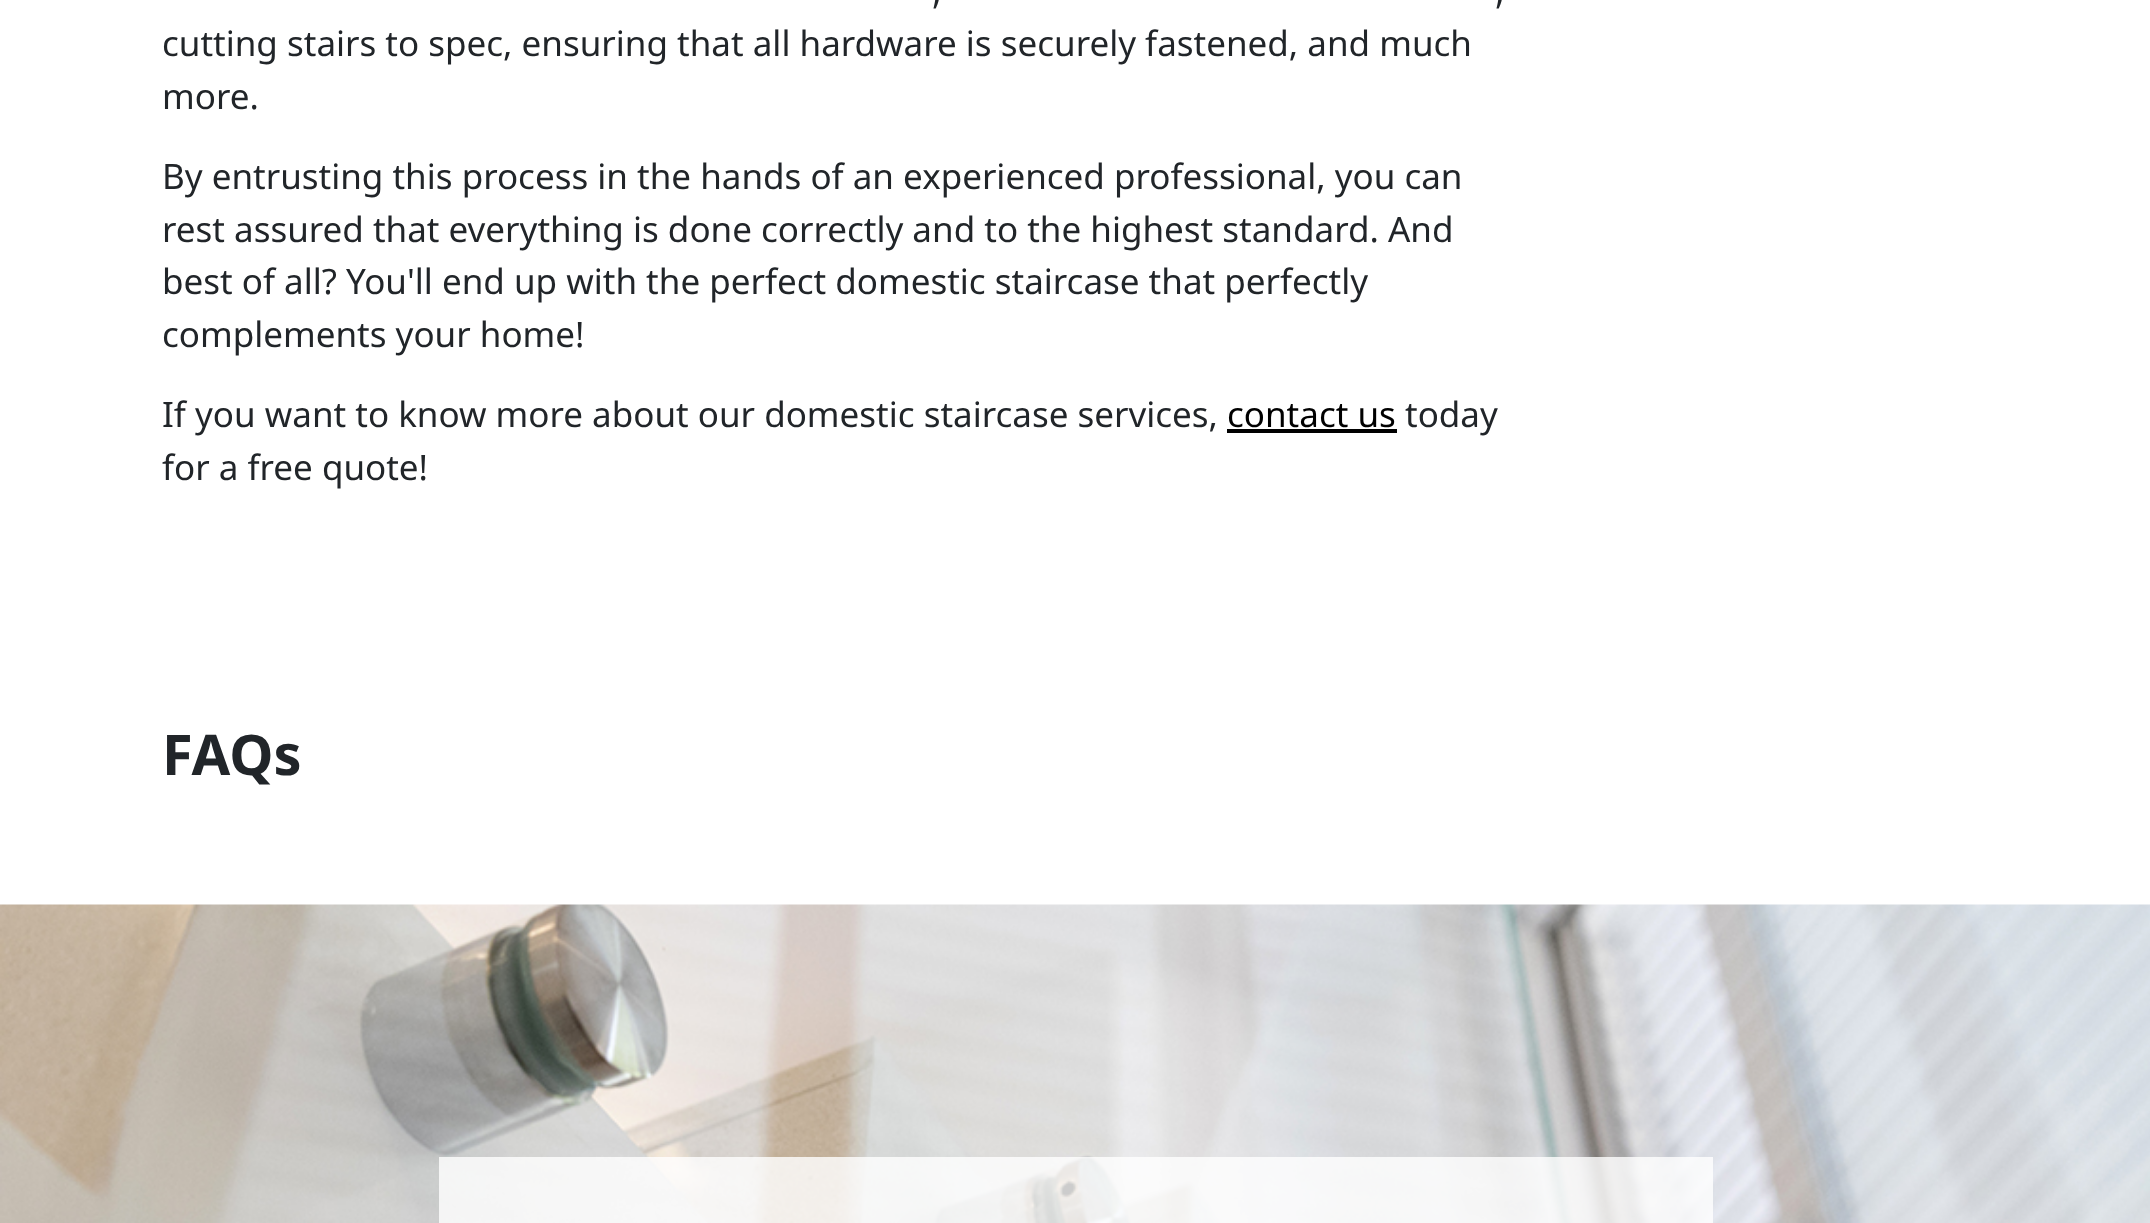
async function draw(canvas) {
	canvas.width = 2150;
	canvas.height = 1223;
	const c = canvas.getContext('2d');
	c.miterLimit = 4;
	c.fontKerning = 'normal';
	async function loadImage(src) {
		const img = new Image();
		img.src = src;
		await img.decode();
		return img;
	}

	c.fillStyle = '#fff';
	c.fillRect(0, 0, 2150, 1223);
	c.font = '35px Noto Sans';
	c.fillStyle = '#212529';
	for (const [text, x, y] of [
		[',', 932, 4],
		[',', 1495, 4],
		['cutting stairs to spec, ensuring that all hardware is securely fastened, and much', 162, 56],
		['more.', 162, 109],
		['By entrusting this process in the hands of an experienced professional, you can', 162, 189],
		['rest assured that everything is done correctly and to the highest standard. And', 162, 242],
		['best of all? You\'ll end up with the perfect domestic staircase that perfectly', 162, 294],
		['complements your home!', 162, 347],
		['If you want to know more about our domestic staircase services,', 162, 427],
	]) {
		c.fillText(text, x, y);
	}
	c.fillStyle = '#000';
	c.fillText('contact us', 1227, 427);
	c.fillRect(1227, 429, 170, 4);
	c.fillStyle = '#212529';
	c.fillText('today', 1405, 427);
	c.fillText('for a free quote!', 162, 480);
	c.font = 'bold 56px Noto Sans';
	c.fillText('FAQs', 162, 775);
	c.drawImage(await loadImage('img1.png'), 0, 904, 2150, 319);
	c.fillStyle = '#ffffffcc';
	c.fillRect(439, 1157, 1274, 66);
}

draw(document.querySelector('canvas'));
